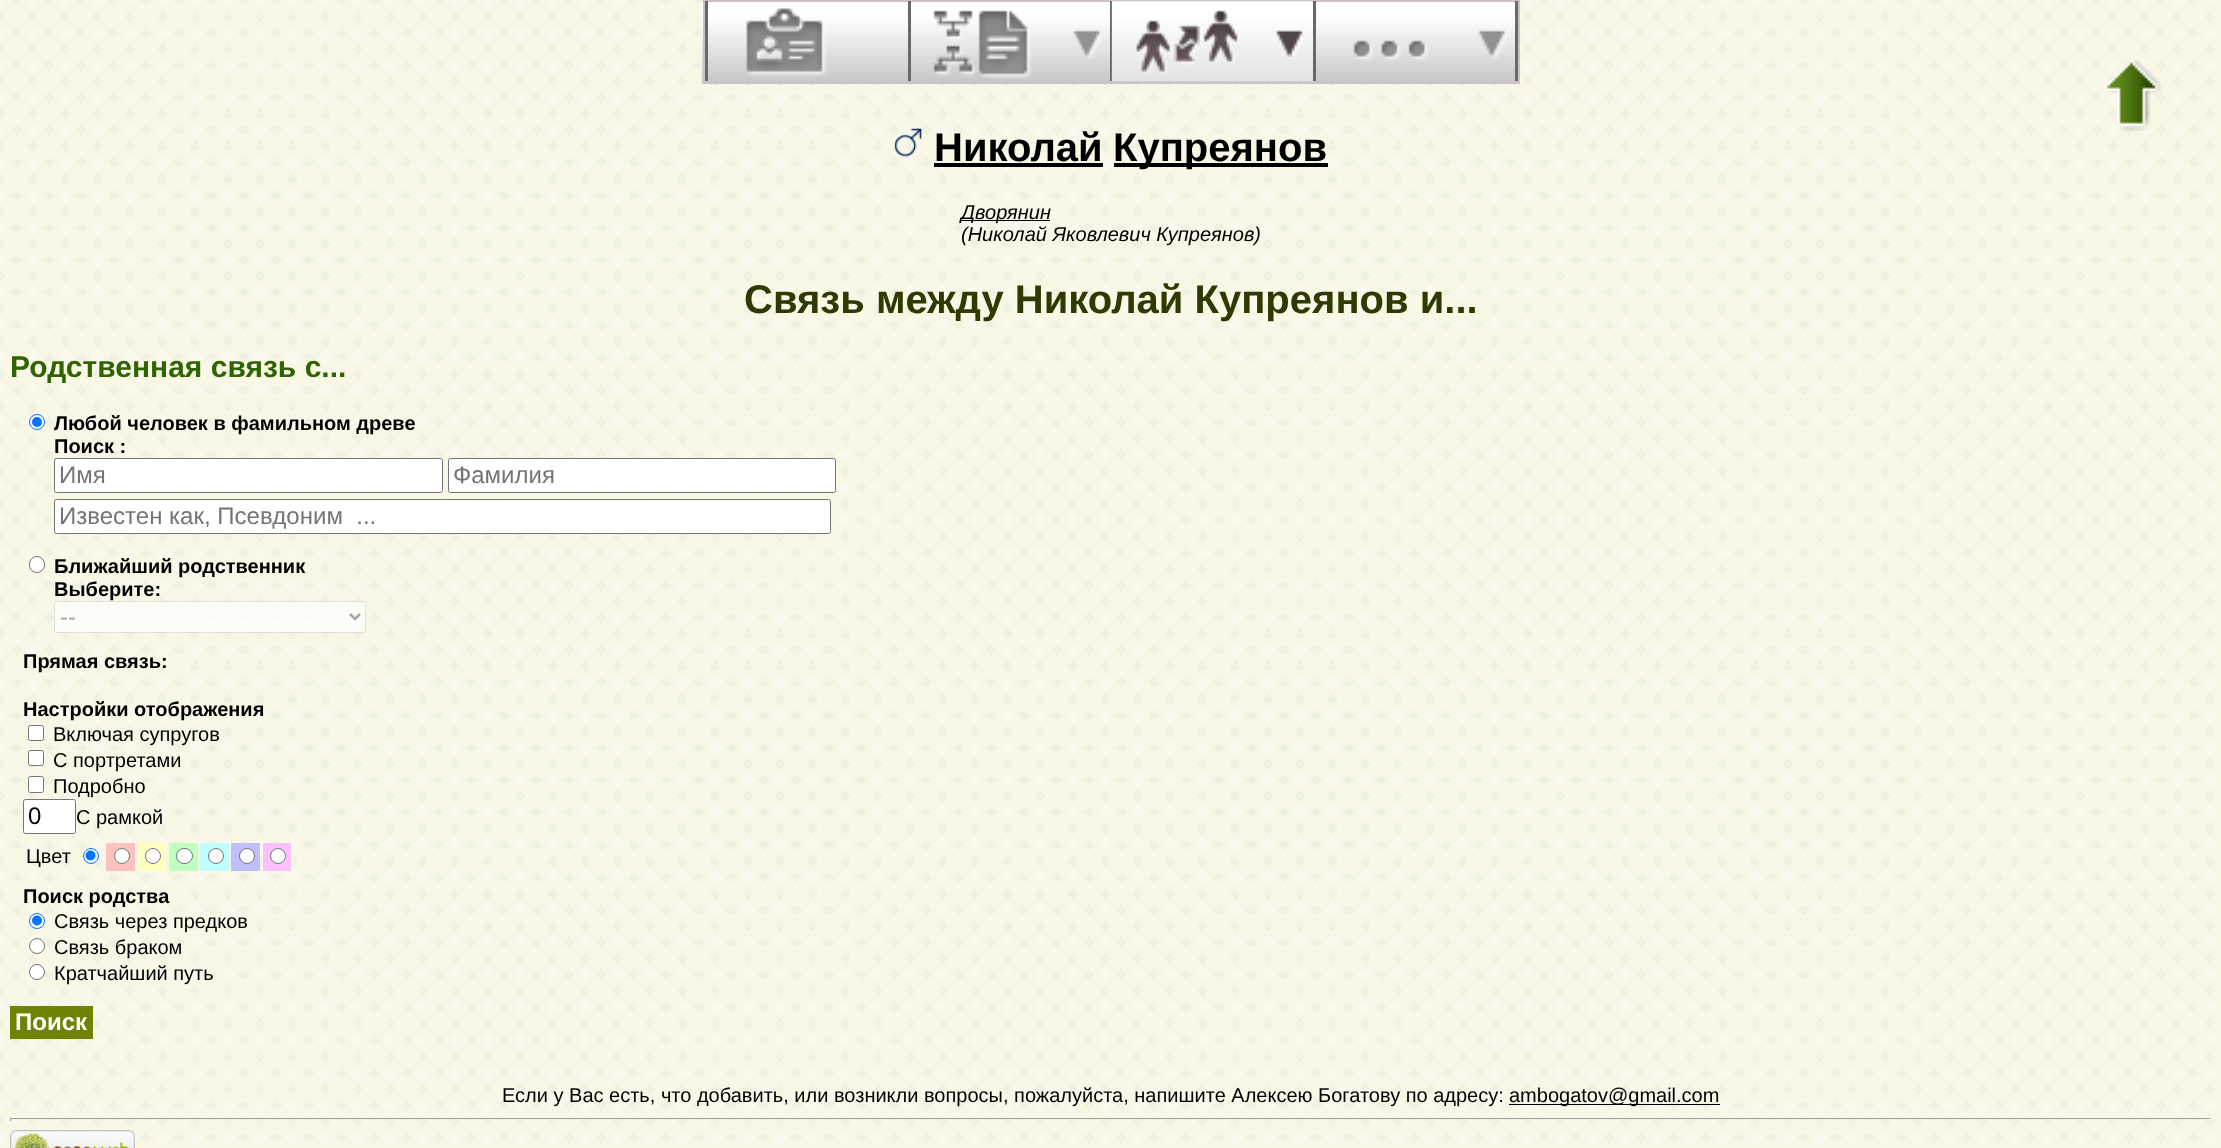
async function draw(canvas) {
	canvas.width = 2221;
	canvas.height = 1148;
	const c = canvas.getContext('2d');
	c.miterLimit = 4;
	c.fontKerning = 'normal';
	async function loadImage(src) {
		const img = new Image();
		img.src = src;
		await img.decode();
		return img;
	}

	c.fillStyle = '#fff';
	c.fillRect(0, 0, 2221, 1148);
	c.drawImage(await loadImage('img1.png'), 0, 0, 2221, 1148);
	c.drawImage(await loadImage('img2.png'), 701, 0, 814, 84);
	c.strokeStyle = '#cdc3c6';
	c.lineWidth = 3;
	c.strokeRect(704.5, 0.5, 814, 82);
	c.fillStyle = '#696969';
	c.fillRect(908, 1, 3, 80);
	c.fillRect(705, 1, 3, 80);
	c.drawImage(await loadImage('img3.png'), 746, 8, 81, 69);
	c.fillRect(1110, 1, 3, 80);
	c.drawImage(await loadImage('img4.png'), 933, 10, 99, 69);
	c.drawImage(await loadImage('img5.png'), 1073, 30, 29, 29);
	c.drawImage(await loadImage('img6.png'), 1111, 1, 204, 81);
	c.fillRect(1313, 1, 3, 80);
	c.drawImage(await loadImage('img7.png'), 1136, 10, 103, 65);
	c.drawImage(await loadImage('img8.png'), 1276, 30, 27, 28);
	c.fillRect(1515, 1, 3, 80);
	c.drawImage(await loadImage('img9.png'), 1353, 40, 76, 21);
	c.drawImage(await loadImage('img10.png'), 1478, 30, 29, 29);
	c.drawImage(await loadImage('img11.png'), 2106, 60, 56, 71);
	c.drawImage(await loadImage('img12.png'), 894, 128, 28, 29);
	c.font = 'bold 40px Liberation Sans';
	c.fillStyle = '#000';
	c.fillText('Николай', 934, 161);
	c.fillRect(934, 163, 169, 4);
	c.fillRect(1114, 163, 214, 4);
	c.fillText('Купреянов', 1113, 161);
	c.fillRect(960, 220, 90, 1);
	c.font = 'italic 20px Liberation Sans';
	c.fillText('Дворянин', 961, 219);
	c.fillText('(Николай Яковлевич Купреянов)', 961, 241);
	c.font = 'bold 40px Liberation Sans';
	c.fillStyle = '#303900';
	c.fillText('Связь между Николай Купреянов и...', 744, 313);
	c.font = 'bold 30px Liberation Sans';
	c.fillStyle = '#2f6400';
	c.fillText('Родственная связь с...', 10, 377);
	c.fillStyle = '#fff';
	c.beginPath();
	c.arc(37, 422, 7.5, 0, 2 * Math.PI);
	c.fill();
	c.strokeStyle = '#0075ff';
	c.lineWidth = 1;
	c.stroke();
	c.fillStyle = '#0075ff';
	c.beginPath();
	c.arc(37, 422, 5, 0, 2 * Math.PI);
	c.fill();
	c.font = 'bold 20px Liberation Sans';
	c.fillStyle = '#000';
	c.fillText('Любой человек в фамильном древе', 54, 430);
	c.fillText('Поиск :', 54, 453);
	c.fillStyle = '#fff';
	c.beginPath();
	c.roundRect(54.5, 458.5, 388, 34, 2);
	c.fill();
	c.strokeStyle = '#767676';
	c.stroke();
	c.font = '24px Liberation Sans';
	c.fillStyle = '#757575';
	c.fillText('Имя', 59, 483);
	c.fillStyle = '#fff';
	c.beginPath();
	c.roundRect(448.5, 458.5, 387, 34, 2);
	c.fill();
	c.stroke();
	c.fillStyle = '#757575';
	c.fillText('Фамилия', 453, 483);
	c.fillStyle = '#fff';
	c.beginPath();
	c.roundRect(54.5, 499.5, 776, 34, 2);
	c.fill();
	c.stroke();
	c.fillStyle = '#757575';
	c.fillText('Известен как, Псевдоним  ...', 59, 524);
	c.fillStyle = '#fff';
	c.beginPath();
	c.roundRect(29.5, 556.5, 15, 16, 7.5);
	c.fill();
	c.stroke();
	c.font = 'bold 20px Liberation Sans';
	c.fillStyle = '#000';
	c.fillText('Ближайший родственник', 54, 573);
	c.fillText('Выберите:', 54, 596);
	c.fillStyle = '#ffffffb3';
	c.beginPath();
	c.roundRect(54, 601, 312, 32, 2.5);
	c.fill();
	c.beginPath();
	c.roundRect(54.5, 601.5, 311, 31, 2);
	c.strokeStyle = '#76767636';
	c.stroke();
	c.beginPath();
	c.moveTo(350, 614);
	c.lineTo(355, 619);
	c.lineTo(360, 614);
	c.strokeStyle = '#808080b3';
	c.lineWidth = 2.5;
	c.stroke();
	c.font = '24px Liberation Sans';
	c.fillStyle = '#a6a5a4';
	c.fillText('--', 60, 625);
	c.font = 'bold 20px Liberation Sans';
	c.fillStyle = '#000';
	c.fillText('Прямая связь:', 23, 668);
	c.fillText('Настройки отображения', 23, 716);
	c.fillStyle = '#fff';
	c.beginPath();
	c.roundRect(28.5, 725.5, 15, 15, 2);
	c.fill();
	c.strokeStyle = '#767676';
	c.lineWidth = 1;
	c.stroke();
	c.font = '20px Liberation Sans';
	c.fillStyle = '#000';
	c.fillText('Включая супругов', 53, 741);
	c.fillStyle = '#fff';
	c.beginPath();
	c.roundRect(28.5, 750.5, 15, 15, 2);
	c.fill();
	c.stroke();
	c.fillStyle = '#000';
	c.fillText('С портретами', 53, 767);
	c.fillStyle = '#fff';
	c.beginPath();
	c.roundRect(28.5, 776.5, 15, 16, 2);
	c.fill();
	c.stroke();
	c.fillStyle = '#000';
	c.fillText('Подробно', 53, 793);
	c.fillStyle = '#fff';
	c.beginPath();
	c.roundRect(23.5, 799.5, 52, 34, 2);
	c.fill();
	c.stroke();
	c.font = '24px Liberation Sans';
	c.fillStyle = '#000';
	c.fillText('0', 28, 824);
	c.font = '20px Liberation Sans';
	c.fillText('С рамкой', 76, 824);
	c.fillText('Цвет', 26, 863);
	c.fillStyle = '#fff';
	c.beginPath();
	c.arc(91, 856, 7.5, 0, 2 * Math.PI);
	c.fill();
	c.strokeStyle = '#0075ff';
	c.stroke();
	c.fillStyle = '#0075ff';
	c.beginPath();
	c.arc(90.5, 855.5, 5, 0, 2 * Math.PI);
	c.fill();
	c.fillStyle = '#ffc0c0';
	c.fillRect(106, 843, 29, 28);
	c.fillStyle = '#fff';
	c.beginPath();
	c.arc(122, 856, 7.5, 0, 2 * Math.PI);
	c.fill();
	c.strokeStyle = '#767676';
	c.stroke();
	c.fillStyle = '#ffffc0';
	c.fillRect(138, 843, 28, 28);
	c.fillStyle = '#fff';
	c.beginPath();
	c.arc(153, 856, 7.5, 0, 2 * Math.PI);
	c.fill();
	c.stroke();
	c.fillStyle = '#c0ffc0';
	c.fillRect(169, 843, 29, 28);
	c.fillStyle = '#fff';
	c.beginPath();
	c.roundRect(176.5, 848.5, 16, 15, 7.5);
	c.fill();
	c.stroke();
	c.fillStyle = '#c0ffff';
	c.fillRect(200, 843, 29, 28);
	c.fillStyle = '#fff';
	c.beginPath();
	c.arc(216, 856, 7.5, 0, 2 * Math.PI);
	c.fill();
	c.stroke();
	c.fillStyle = '#c0c0ff';
	c.fillRect(231, 843, 29, 28);
	c.fillStyle = '#fff';
	c.beginPath();
	c.arc(247, 856, 7.5, 0, 2 * Math.PI);
	c.fill();
	c.stroke();
	c.fillStyle = '#ffc0ff';
	c.fillRect(263, 843, 28, 28);
	c.fillStyle = '#fff';
	c.beginPath();
	c.arc(278, 856, 7.5, 0, 2 * Math.PI);
	c.fill();
	c.stroke();
	c.font = 'bold 20px Liberation Sans';
	c.fillStyle = '#000';
	c.fillText('Поиск родства', 23, 903);
	c.fillStyle = '#fff';
	c.beginPath();
	c.arc(37, 921, 7.5, 0, 2 * Math.PI);
	c.fill();
	c.strokeStyle = '#0075ff';
	c.stroke();
	c.fillStyle = '#0075ff';
	c.beginPath();
	c.arc(37, 920.5, 5, 0, 2 * Math.PI);
	c.fill();
	c.font = '20px Liberation Sans';
	c.fillStyle = '#000';
	c.fillText('Связь через предков', 54, 928);
	c.fillStyle = '#fff';
	c.beginPath();
	c.arc(37, 946, 7.5, 0, 2 * Math.PI);
	c.fill();
	c.strokeStyle = '#767676';
	c.stroke();
	c.fillStyle = '#000';
	c.fillText('Связь браком', 54, 954);
	c.fillStyle = '#fff';
	c.beginPath();
	c.arc(37, 972, 7.5, 0, 2 * Math.PI);
	c.fill();
	c.stroke();
	c.fillStyle = '#000';
	c.fillText('Кратчайший путь', 54, 980);
	c.fillStyle = '#6f8301';
	c.fillRect(10, 1006, 83, 33);
	c.font = 'bold 24px Liberation Sans';
	c.fillStyle = '#fff';
	c.fillText('Поиск', 15, 1030);
	c.font = '20px Liberation Sans';
	c.fillStyle = '#000';
	c.fillText('Если у Вас есть, что добавить, или возникли вопросы, пожалуйста, напишите Алексею Богатову по адресу:', 502, 1102);
	c.fillRect(1509, 1104, 211, 1);
	c.fillText('ambogatov@gmail.com', 1509, 1102);
	for (const [x, y, w, h, color] of [
		[10, 1118, 2201, 1, '#9f9f9f'],
		[2210, 1118, 1, 3, '#eee'],
		[10, 1119, 2201, 1, '#eee'],
		[10, 1118, 1, 3, '#9f9f9f'],
	]) {
		c.fillStyle = color;
		c.fillRect(x, y, w, h);
	}
	c.drawImage(await loadImage('img13.png'), 10, 1130, 125, 18);
}

draw(document.querySelector('canvas'));
